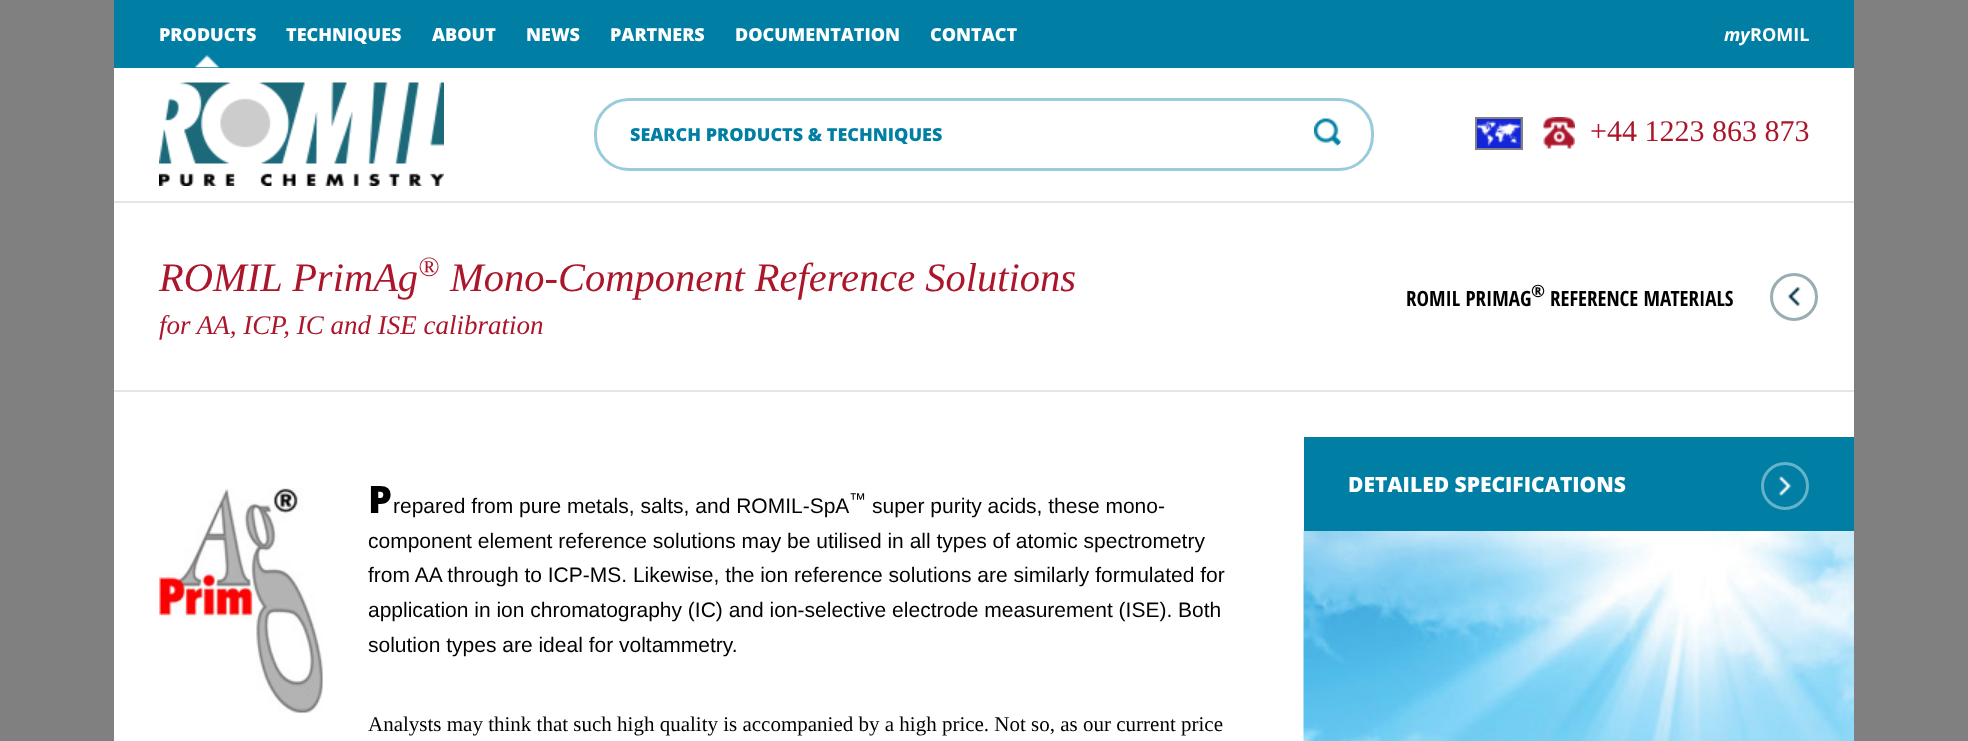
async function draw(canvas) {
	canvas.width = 1968;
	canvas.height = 741;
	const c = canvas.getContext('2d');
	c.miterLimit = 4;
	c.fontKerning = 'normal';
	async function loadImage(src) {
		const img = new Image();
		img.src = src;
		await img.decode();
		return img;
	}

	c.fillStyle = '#808080';
	c.fillRect(0, 0, 1968, 741);
	c.fillStyle = '#007ea3';
	c.fillRect(114, 0, 1740, 68);
	c.drawImage(await loadImage('img1.png'), 195, 55, 24, 13);
	c.font = '800 18px Open Sans';
	c.fillStyle = '#fff';
	for (const [text, x, y] of [
		['PRODUCTS', 159, 41],
		['TECHNIQUES', 286, 41],
		['ABOUT', 432, 41],
		['NEWS', 526, 41],
		['PARTNERS', 610, 41],
		['DOCUMENTATION', 735, 41],
		['CONTACT', 930, 41],
	]) {
		c.fillText(text, x, y);
	}
	c.font = 'italic bold 18px Open Sans';
	c.fillText('my', 1724, 41);
	c.font = 'bold 18px Open Sans';
	c.fillText('ROMIL', 1750, 41);
	c.fillRect(114, 68, 1740, 133);
	c.fillStyle = '#e5e5e5';
	c.fillRect(114, 201, 1740, 2);
	c.drawImage(await loadImage('img2.png'), 159, 82, 285, 104);
	c.beginPath();
	c.roundRect(595.5, 99.5, 777, 70, 33.5);
	c.strokeStyle = '#99cbda';
	c.lineWidth = 3;
	c.stroke();
	c.font = '800 18px Open Sans';
	c.fillStyle = '#007ea3';
	c.fillText('SEARCH PRODUCTS & TECHNIQUES', 630, 141);
	c.drawImage(await loadImage('img3.png'), 1314, 118, 28, 28);
	c.drawImage(await loadImage('img4.png'), 1477, 119, 44, 29);
	c.strokeStyle = '#808080';
	c.lineWidth = 2;
	c.strokeRect(1476, 118, 46, 31);
	c.drawImage(await loadImage('img5.png'), 1543, 117, 32, 32);
	c.font = '30px Liberation Serif';
	c.fillStyle = '#ab162b';
	c.fillText('+44 1223 863 873', 1590, 141);
	c.fillStyle = '#fff';
	c.fillRect(114, 203, 1740, 538);
	c.fillStyle = '#e5e5e5';
	c.fillRect(114, 390, 1740, 2);
	c.font = 'italic 40.5px Liberation Serif';
	c.fillStyle = '#ab162b';
	c.fillText('ROMIL PrimAg', 159, 291);
	c.font = 'italic 28px Liberation Serif';
	c.fillText('®', 418, 276);
	c.font = 'italic 40.5px Liberation Serif';
	c.fillText('Mono-Component Reference Solutions', 450, 291);
	c.font = 'bold 21px Open Sans Condensed';
	c.fillStyle = '#000';
	c.fillText('ROMIL PRIMAG', 1406, 306);
	c.font = 'bold 17px Open Sans Condensed';
	c.fillText('®', 1531, 297);
	c.font = 'bold 21px Open Sans Condensed';
	c.fillText('REFERENCE MATERIALS', 1550, 306);
	c.beginPath();
	c.arc(1794, 297, 22.5, 0, 2 * Math.PI);
	c.strokeStyle = '#99adb3';
	c.lineWidth = 3;
	c.stroke();
	c.drawImage(await loadImage('img6.png'), 1787, 286, 14, 21);
	c.font = 'italic 27px Liberation Serif';
	c.fillStyle = '#ab162b';
	c.fillText('for AA, ICP, IC and ISE calibration', 159, 334);
	c.drawImage(await loadImage('img7.png'), 159, 488, 164, 225);
	c.font = '900 38px Noto Sans';
	c.fillStyle = '#000';
	c.fillText('P', 368, 513);
	c.font = '21px Liberation Sans';
	c.fillText('repared from pure metals, salts, and ROMIL-SpA', 393, 513);
	c.font = '17px Liberation Sans';
	c.fillText('™', 849, 505);
	c.font = '21px Liberation Sans';
	for (const [text, x, y] of [
		['super purity acids, these mono-', 872, 513],
		['component element reference solutions may be utilised in all types of atomic spectrometry', 368, 548],
		['from AA through to ICP-MS. Likewise, the ion reference solutions are similarly formulated for', 368, 582],
		['application in ion chromatography (IC) and ion-selective electrode measurement (ISE). Both', 368, 617],
		['solution types are ideal for voltammetry.', 368, 652],
	]) {
		c.fillText(text, x, y);
	}
	c.font = '21px Liberation Serif';
	c.fillText('Analysts may think that such high quality is accompanied by a high price. Not so, as our current price', 368, 731);
	c.fillStyle = '#007ea3';
	c.fillRect(1304, 437, 550, 94);
	c.font = '800 21px Open Sans';
	c.fillStyle = '#fff';
	c.fillText('DETAILED SPECIFICATIONS', 1348, 492);
	c.beginPath();
	c.arc(1785, 486, 22.5, 0, 2 * Math.PI);
	c.strokeStyle = '#66b2c8';
	c.stroke();
	c.drawImage(await loadImage('img8.png'), 1778, 475, 14, 22);
	c.drawImage(await loadImage('img9.png'), 1303, 531, 551, 210);
}

draw(document.querySelector('canvas'));
